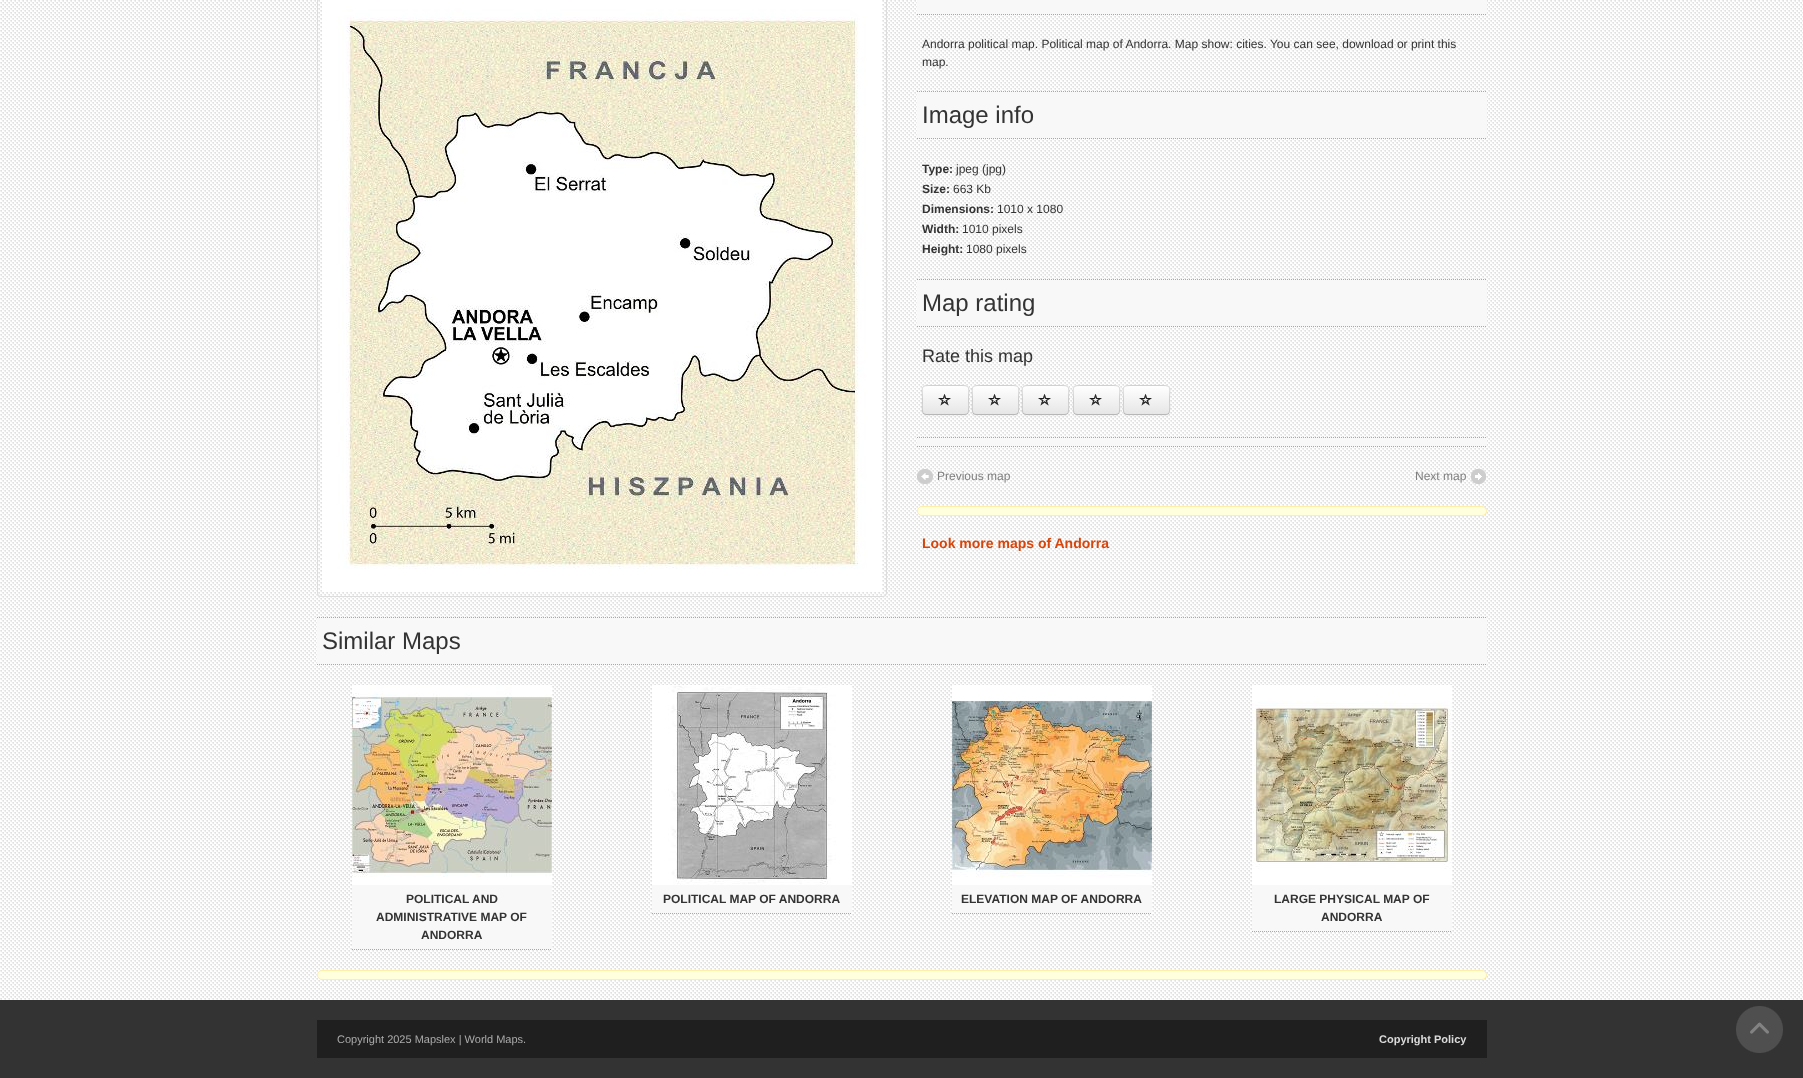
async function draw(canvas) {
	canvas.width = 1803;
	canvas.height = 1078;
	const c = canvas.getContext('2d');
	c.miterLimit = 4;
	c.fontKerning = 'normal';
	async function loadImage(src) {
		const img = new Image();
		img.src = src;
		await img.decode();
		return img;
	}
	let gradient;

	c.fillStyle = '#fff';
	c.fillRect(0, 0, 1803, 1078);
	c.drawImage(await loadImage('img1.png'), 0, 0, 1803, 1000);
	c.beginPath();
	c.roundRect(317.5, -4.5, 569, 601, 3.5);
	c.strokeStyle = '#ddd';
	c.stroke();
	c.drawImage(await loadImage('img2.png'), 322, 0, 560, 592);
	c.fillStyle = '#f8f8f8';
	c.fillRect(917, 0, 570, 15);
	c.beginPath();
	c.moveTo(917, 14.5);
	c.lineTo(1487, 14.5);
	c.strokeStyle = '#a9a9a9';
	c.setLineDash([1, 1]);
	c.stroke();
	c.font = '12px Liberation Sans';
	c.fillStyle = '#333';
	c.fillText('Andorra political map. Political map of Andorra. Map show: cities. You can see, download or print this', 922, 48);
	c.fillText('map.', 922, 66);
	c.fillStyle = '#f8f8f8';
	c.fillRect(917, 91, 570, 48);
	c.beginPath();
	c.moveTo(917, 91.5);
	c.lineTo(1487, 91.5);
	c.stroke();
	c.beginPath();
	c.moveTo(917, 138.5);
	c.lineTo(1487, 138.5);
	c.stroke();
	c.font = '24px Liberation Sans';
	c.fillStyle = '#333';
	c.fillText('Image info', 922, 123);
	c.font = 'bold 12px Liberation Sans';
	c.fillText('Type:', 922, 173);
	c.font = '12px Liberation Sans';
	c.fillText('jpeg (jpg)', 956, 173);
	c.font = 'bold 12px Liberation Sans';
	c.fillText('Size:', 922, 193);
	c.font = '12px Liberation Sans';
	c.fillText('663 Kb', 953, 193);
	c.font = 'bold 12px Liberation Sans';
	c.fillText('Dimensions:', 922, 213);
	c.font = '12px Liberation Sans';
	c.fillText('1010 x 1080', 997, 213);
	c.font = 'bold 12px Liberation Sans';
	c.fillText('Width:', 922, 233);
	c.font = '12px Liberation Sans';
	c.fillText('1010 pixels', 962, 233);
	c.font = 'bold 12px Liberation Sans';
	c.fillText('Height:', 922, 253);
	c.font = '12px Liberation Sans';
	c.fillText('1080 pixels', 966, 253);
	c.fillStyle = '#f8f8f8';
	c.fillRect(917, 279, 570, 48);
	c.beginPath();
	c.moveTo(917, 279.5);
	c.lineTo(1487, 279.5);
	c.stroke();
	c.beginPath();
	c.moveTo(917, 326.5);
	c.lineTo(1487, 326.5);
	c.stroke();
	c.font = '24px Liberation Sans';
	c.fillStyle = '#333';
	c.fillText('Map rating', 922, 311);
	c.font = '18px Liberation Sans';
	c.fillText('Rate this map', 922, 362);
	c.fillStyle = '#0000000d';
	c.filter = 'blur(1px)';
	c.beginPath();
	c.roundRect(922, 386, 47, 30, 4);
	c.fill();
	c.filter = 'none';
	c.fillStyle = '#f5f5f5';
	c.beginPath();
	c.roundRect(922, 385, 47, 30, 4);
	c.fill();
	c.save();
	c.beginPath();
	c.roundRect(922, 385, 47, 30, 4);
	c.clip();
	gradient = c.createLinearGradient(946, 386, 946, 414);
	gradient.addColorStop(0, '#fff');
	gradient.addColorStop(1, '#e6e6e6');
	c.fillStyle = gradient;
	c.fillRect(922, 386, 47, 28);
	c.restore();
	c.beginPath();
	c.moveTo(967.5, 413.5);
	c.bezierCurveTo(967, 414, 966, 414.5, 965, 414.5);
	c.lineTo(926, 414.5);
	c.bezierCurveTo(925, 414.5, 924, 414, 923.5, 413.5);
	c.strokeStyle = '#00000040';
	c.setLineDash([]);
	c.stroke();
	c.beginPath();
	c.moveTo(923.5, 413.5);
	c.bezierCurveTo(921.5, 411.5, 922.5, 403, 922.5, 400);
	c.bezierCurveTo(922.5, 386.5, 919.5, 385.5, 932.5, 385.5);
	c.lineTo(958.5, 385.5);
	c.bezierCurveTo(971.5, 385.5, 968.5, 386.5, 968.5, 400);
	c.bezierCurveTo(968.5, 403, 969.5, 411.5, 967.5, 413.5);
	c.strokeStyle = '#00000026';
	c.stroke();
	c.drawImage(await loadImage('img3.png'), 938, 394, 13, 12);
	c.fillStyle = '#0000000d';
	c.filter = 'blur(1px)';
	c.beginPath();
	c.roundRect(972, 386, 47, 30, 4);
	c.fill();
	c.filter = 'none';
	c.fillStyle = '#f5f5f5';
	c.beginPath();
	c.roundRect(972, 385, 47, 30, 4);
	c.fill();
	c.save();
	c.beginPath();
	c.roundRect(972, 385, 47, 30, 4);
	c.clip();
	gradient = c.createLinearGradient(996, 386, 996, 414);
	gradient.addColorStop(0, '#fff');
	gradient.addColorStop(1, '#e6e6e6');
	c.fillStyle = gradient;
	c.fillRect(972, 386, 47, 28);
	c.restore();
	c.beginPath();
	c.moveTo(1017.5, 413.5);
	c.bezierCurveTo(1017, 414, 1016, 414.5, 1015, 414.5);
	c.lineTo(976, 414.5);
	c.bezierCurveTo(975, 414.5, 974, 414, 973.5, 413.5);
	c.strokeStyle = '#00000040';
	c.stroke();
	c.beginPath();
	c.moveTo(973.5, 413.5);
	c.bezierCurveTo(971.5, 411.5, 972.5, 403, 972.5, 400);
	c.bezierCurveTo(972.5, 386.5, 969.5, 385.5, 982.5, 385.5);
	c.lineTo(1008.5, 385.5);
	c.bezierCurveTo(1021.5, 385.5, 1018.5, 386.5, 1018.5, 400);
	c.bezierCurveTo(1018.5, 403, 1019.5, 411.5, 1017.5, 413.5);
	c.strokeStyle = '#00000026';
	c.stroke();
	c.drawImage(await loadImage('img3.png'), 988, 394, 13, 12);
	c.fillStyle = '#0000000d';
	c.filter = 'blur(1px)';
	c.beginPath();
	c.roundRect(1022, 386, 47, 30, 4);
	c.fill();
	c.filter = 'none';
	c.fillStyle = '#f5f5f5';
	c.beginPath();
	c.roundRect(1022, 385, 47, 30, 4);
	c.fill();
	c.save();
	c.beginPath();
	c.roundRect(1022, 385, 47, 30, 4);
	c.clip();
	gradient = c.createLinearGradient(1046, 386, 1046, 414);
	gradient.addColorStop(0, '#fff');
	gradient.addColorStop(1, '#e6e6e6');
	c.fillStyle = gradient;
	c.fillRect(1022, 386, 47, 28);
	c.restore();
	c.beginPath();
	c.moveTo(1067.5, 413.5);
	c.bezierCurveTo(1067, 414, 1066, 414.5, 1065, 414.5);
	c.lineTo(1026, 414.5);
	c.bezierCurveTo(1025, 414.5, 1024, 414, 1023.5, 413.5);
	c.strokeStyle = '#00000040';
	c.stroke();
	c.beginPath();
	c.moveTo(1023.5, 413.5);
	c.bezierCurveTo(1021.5, 411.5, 1022.5, 403, 1022.5, 400);
	c.bezierCurveTo(1022.5, 386.5, 1019.5, 385.5, 1032.5, 385.5);
	c.lineTo(1058.5, 385.5);
	c.bezierCurveTo(1071.5, 385.5, 1068.5, 386.5, 1068.5, 400);
	c.bezierCurveTo(1068.5, 403, 1069.5, 411.5, 1067.5, 413.5);
	c.strokeStyle = '#00000026';
	c.stroke();
	c.drawImage(await loadImage('img3.png'), 1038, 394, 13, 12);
	c.fillStyle = '#0000000d';
	c.filter = 'blur(1px)';
	c.beginPath();
	c.roundRect(1073, 386, 47, 30, 4);
	c.fill();
	c.filter = 'none';
	c.fillStyle = '#f5f5f5';
	c.beginPath();
	c.roundRect(1073, 385, 47, 30, 4);
	c.fill();
	c.save();
	c.beginPath();
	c.roundRect(1073, 385, 47, 30, 4);
	c.clip();
	gradient = c.createLinearGradient(1097, 386, 1097, 414);
	gradient.addColorStop(0, '#fff');
	gradient.addColorStop(1, '#e6e6e6');
	c.fillStyle = gradient;
	c.fillRect(1073, 386, 47, 28);
	c.restore();
	c.beginPath();
	c.moveTo(1118.5, 413.5);
	c.bezierCurveTo(1118, 414, 1117, 414.5, 1116, 414.5);
	c.lineTo(1077, 414.5);
	c.bezierCurveTo(1076, 414.5, 1075, 414, 1074.5, 413.5);
	c.strokeStyle = '#00000040';
	c.stroke();
	c.beginPath();
	c.moveTo(1074.5, 413.5);
	c.bezierCurveTo(1072.5, 411.5, 1073.5, 403, 1073.5, 400);
	c.bezierCurveTo(1073.5, 386.5, 1070.5, 385.5, 1083.5, 385.5);
	c.lineTo(1109.5, 385.5);
	c.bezierCurveTo(1122.5, 385.5, 1119.5, 386.5, 1119.5, 400);
	c.bezierCurveTo(1119.5, 403, 1120.5, 411.5, 1118.5, 413.5);
	c.strokeStyle = '#00000026';
	c.stroke();
	c.drawImage(await loadImage('img3.png'), 1089, 394, 13, 12);
	c.fillStyle = '#0000000d';
	c.filter = 'blur(1px)';
	c.beginPath();
	c.roundRect(1123, 386, 47, 30, 4);
	c.fill();
	c.filter = 'none';
	c.fillStyle = '#f5f5f5';
	c.beginPath();
	c.roundRect(1123, 385, 47, 30, 4);
	c.fill();
	c.save();
	c.beginPath();
	c.roundRect(1123, 385, 47, 30, 4);
	c.clip();
	gradient = c.createLinearGradient(1147, 386, 1147, 414);
	gradient.addColorStop(0, '#fff');
	gradient.addColorStop(1, '#e6e6e6');
	c.fillStyle = gradient;
	c.fillRect(1123, 386, 47, 28);
	c.restore();
	c.beginPath();
	c.moveTo(1168.5, 413.5);
	c.bezierCurveTo(1168, 414, 1167, 414.5, 1166, 414.5);
	c.lineTo(1127, 414.5);
	c.bezierCurveTo(1126, 414.5, 1125, 414, 1124.5, 413.5);
	c.strokeStyle = '#00000040';
	c.stroke();
	c.beginPath();
	c.moveTo(1124.5, 413.5);
	c.bezierCurveTo(1122.5, 411.5, 1123.5, 403, 1123.5, 400);
	c.bezierCurveTo(1123.5, 386.5, 1120.5, 385.5, 1133.5, 385.5);
	c.lineTo(1159.5, 385.5);
	c.bezierCurveTo(1172.5, 385.5, 1169.5, 386.5, 1169.5, 400);
	c.bezierCurveTo(1169.5, 403, 1170.5, 411.5, 1168.5, 413.5);
	c.strokeStyle = '#00000026';
	c.stroke();
	c.drawImage(await loadImage('img3.png'), 1139, 394, 13, 12);
	c.fillStyle = '#f8f8f8';
	c.fillRect(917, 437, 570, 10);
	c.beginPath();
	c.moveTo(917, 437.5);
	c.lineTo(1487, 437.5);
	c.strokeStyle = '#a9a9a9';
	c.setLineDash([1, 1]);
	c.stroke();
	c.beginPath();
	c.moveTo(917, 446.5);
	c.lineTo(1487, 446.5);
	c.stroke();
	c.drawImage(await loadImage('img4.png'), 917, 469, 16, 15);
	c.font = '12px Liberation Sans';
	c.fillStyle = '#7f7f7f';
	c.fillText('Previous map', 937, 480);
	c.drawImage(await loadImage('img5.png'), 1471, 469, 15, 15);
	c.fillText('Next map', 1415, 480);
	c.fillStyle = '#ffd';
	c.beginPath();
	c.roundRect(917.5, 506.5, 569, 9, 4.5);
	c.fill();
	c.strokeStyle = '#fea';
	c.setLineDash([]);
	c.stroke();
	c.font = 'bold 14px Liberation Sans';
	c.fillStyle = '#d8450b';
	c.fillText('Look more maps of Andorra', 922, 548);
	c.fillStyle = '#f8f8f8';
	c.fillRect(317, 617, 1170, 48);
	c.beginPath();
	c.moveTo(317, 617.5);
	c.lineTo(1487, 617.5);
	c.strokeStyle = '#a9a9a9';
	c.setLineDash([1, 1]);
	c.stroke();
	c.beginPath();
	c.moveTo(317, 664.5);
	c.lineTo(1487, 664.5);
	c.stroke();
	c.font = '24px Liberation Sans';
	c.fillStyle = '#333';
	c.fillText('Similar Maps', 322, 649);
	c.drawImage(await loadImage('img6.png'), 352, 685, 200, 200);
	c.fillStyle = '#f8f8f8';
	c.fillRect(352, 885, 200, 65);
	c.beginPath();
	c.moveTo(352, 949.5);
	c.lineTo(552, 949.5);
	c.stroke();
	c.font = 'bold 12px Liberation Sans';
	c.fillStyle = '#333';
	for (const [text, x, y] of [
		['POLITICAL AND', 406, 903],
		['ADMINISTRATIVE MAP OF', 376, 921],
		['ANDORRA', 421, 939],
	]) {
		c.fillText(text, x, y);
	}
	c.drawImage(await loadImage('img7.png'), 652, 685, 200, 200);
	c.fillStyle = '#f8f8f8';
	c.fillRect(652, 885, 200, 29);
	c.beginPath();
	c.moveTo(652, 913.5);
	c.lineTo(852, 913.5);
	c.stroke();
	c.fillStyle = '#333';
	c.fillText('POLITICAL MAP OF ANDORRA', 663, 903);
	c.drawImage(await loadImage('img8.png'), 952, 685, 200, 200);
	c.fillStyle = '#f8f8f8';
	c.fillRect(952, 885, 200, 29);
	c.beginPath();
	c.moveTo(952, 913.5);
	c.lineTo(1152, 913.5);
	c.stroke();
	c.fillStyle = '#333';
	c.fillText('ELEVATION MAP OF ANDORRA', 961, 903);
	c.drawImage(await loadImage('img9.png'), 1252, 685, 200, 200);
	c.fillStyle = '#f8f8f8';
	c.fillRect(1252, 885, 200, 47);
	c.beginPath();
	c.moveTo(1252, 931.5);
	c.lineTo(1452, 931.5);
	c.stroke();
	c.fillStyle = '#333';
	c.fillText('LARGE PHYSICAL MAP OF', 1274, 903);
	c.fillText('ANDORRA', 1321, 921);
	c.fillStyle = '#ffd';
	c.beginPath();
	c.roundRect(317.5, 970.5, 1169, 9, 4.5);
	c.fill();
	c.strokeStyle = '#fea';
	c.setLineDash([]);
	c.stroke();
	c.fillStyle = '#333';
	c.fillRect(0, 1000, 1803, 78);
	c.fillStyle = '#1f1f1f';
	c.fillRect(317, 1020, 1170, 38);
	c.font = '11px Liberation Sans';
	c.fillStyle = '#ababab';
	c.fillText('Copyright 2025 Mapslex | World Maps.', 337, 1043);
	c.font = 'bold 11px Liberation Sans';
	c.fillStyle = '#dcdcdc';
	c.fillText('Copyright Policy', 1379, 1043);
	c.drawImage(await loadImage('img10.png'), 1736, 1006, 47, 47);
}

draw(document.querySelector('canvas'));
